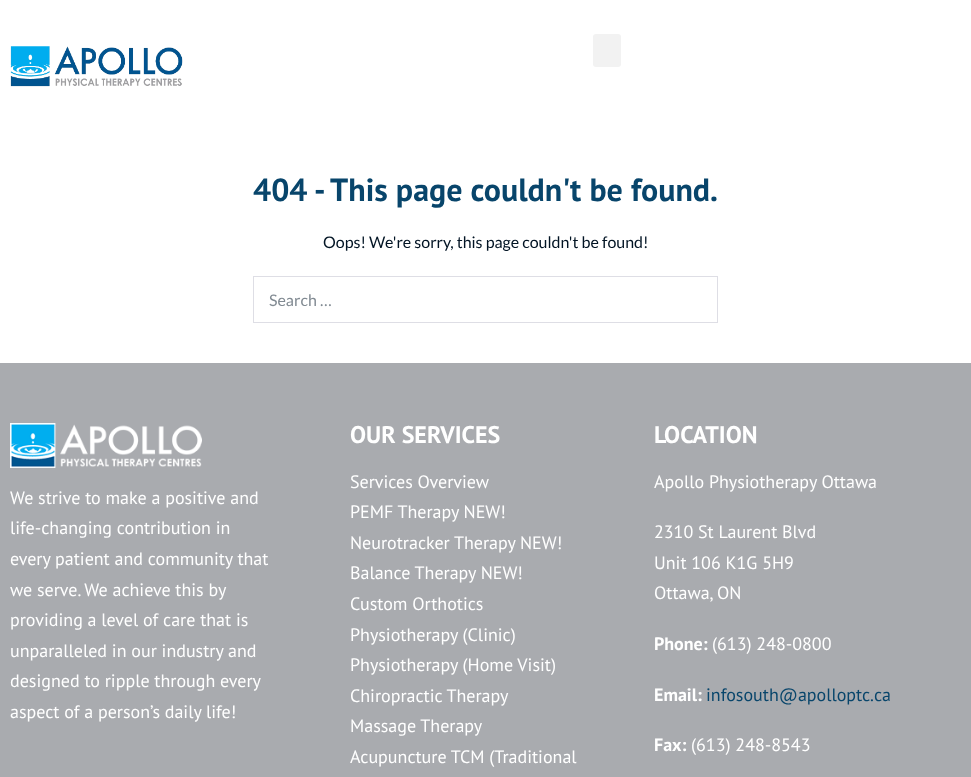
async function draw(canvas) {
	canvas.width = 971;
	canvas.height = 777;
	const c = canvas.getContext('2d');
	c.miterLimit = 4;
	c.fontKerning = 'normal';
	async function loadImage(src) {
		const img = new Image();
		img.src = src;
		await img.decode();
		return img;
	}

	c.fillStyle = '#fff';
	c.fillRect(0, 0, 971, 777);
	c.drawImage(await loadImage('img1.png'), 10, 46, 173, 41);
	c.fillStyle = '#f2f2f2';
	c.beginPath();
	c.roundRect(593, 34, 28, 33, 3);
	c.fill();
	c.font = 'bold 32px PT Sans';
	c.fillStyle = '#08456b';
	c.fillText('404 - This page couldn\'t be found.', 253, 201);
	c.font = '16px Lato';
	c.fillStyle = '#021424';
	c.fillText('Oops! We\'re sorry, this page couldn\'t be found!', 323, 248);
	c.strokeStyle = '#dedee5';
	c.strokeRect(253.5, 276.5, 464, 46);
	c.fillStyle = '#818a92';
	c.fillText('Search …', 269, 306);
	c.fillStyle = '#a9abaf';
	c.fillRect(0, 363, 971, 414);
	c.drawImage(await loadImage('img2.png'), 10, 423, 192, 45);
	c.font = '18px PT Sans';
	c.fillStyle = '#fff';
	for (const [text, x, y] of [
		['We strive to make a positive and', 10, 504],
		['life-changing contribution in', 10, 534],
		['every patient and community that', 10, 565],
		['we serve. We achieve this by', 10, 596],
		['providing a level of care that is', 10, 626],
		['unparalleled in our industry and', 10, 657],
		['designed to ripple through every', 10, 687],
		['aspect of a person’s daily life!', 10, 718],
	]) {
		c.fillText(text, x, y);
	}
	c.font = 'bold 24px PT Sans';
	c.fillText('OUR SERVICES', 350, 443);
	c.font = '18px PT Sans';
	for (const [text, x, y] of [
		['Services Overview', 350, 488],
		['PEMF Therapy NEW!', 350, 518],
		['Neurotracker Therapy NEW!', 350, 549],
		['Balance Therapy NEW!', 350, 579],
		['Custom Orthotics', 350, 610],
		['Physiotherapy (Clinic)', 350, 641],
		['Physiotherapy (Home Visit)', 350, 671],
		['Chiropractic Therapy', 350, 702],
		['Massage Therapy', 350, 732],
		['Acupuncture TCM (Traditional', 350, 763],
	]) {
		c.fillText(text, x, y);
	}
	c.font = 'bold 24px PT Sans';
	c.fillText('LOCATION', 654, 443);
	c.font = '18px PT Sans';
	for (const [text, x, y] of [
		['Apollo Physiotherapy Ottawa', 654, 488],
		['2310 St Laurent Blvd', 654, 538],
		['Unit 106 K1G 5H9', 654, 569],
		['Ottawa, ON', 654, 599],
	]) {
		c.fillText(text, x, y);
	}
	c.font = 'bold 18px PT Sans';
	c.fillText('Phone:', 654, 650);
	c.font = '18px PT Sans';
	c.fillText('(613) 248-0800', 712, 650);
	c.font = 'bold 18px PT Sans';
	c.fillText('Email:', 654, 701);
	c.font = '18px PT Sans';
	c.fillStyle = '#08456b';
	c.fillText('infosouth@apolloptc.ca', 706, 701);
	c.font = 'bold 18px PT Sans';
	c.fillStyle = '#fff';
	c.fillText('Fax:', 654, 751);
	c.font = '18px PT Sans';
	c.fillText('(613) 248-8543', 691, 751);
}

draw(document.querySelector('canvas'));
